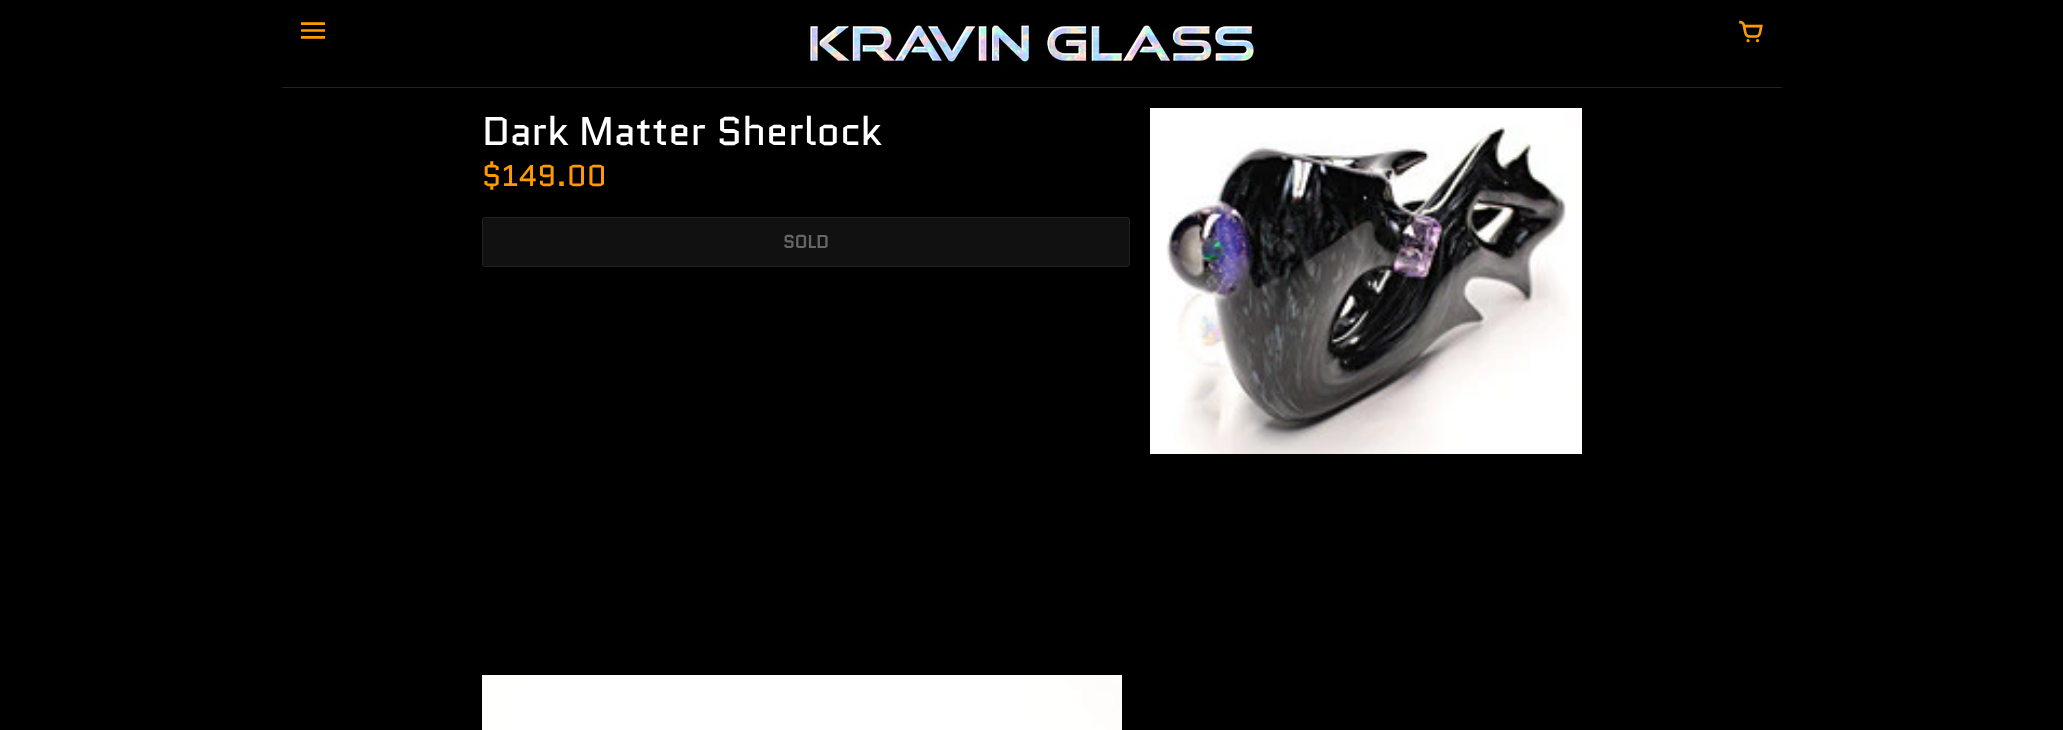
async function draw(canvas) {
	canvas.width = 2063;
	canvas.height = 730;
	const c = canvas.getContext('2d');
	c.miterLimit = 4;
	c.fontKerning = 'normal';
	async function loadImage(src) {
		const img = new Image();
		img.src = src;
		await img.decode();
		return img;
	}

	c.fillStyle = '#000';
	c.fillRect(0, 0, 2063, 730);
	c.fillStyle = '#222';
	c.fillRect(282, 87, 1500, 1);
	c.font = '24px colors';
	c.fillStyle = '#f90';
	c.fillText('1', 301, 44);
	c.drawImage(await loadImage('img1.png'), 808, 23, 449, 44);
	c.fillText('3', 1739, 45);
	c.font = '40px Quantico';
	c.fillStyle = '#fff';
	c.fillText('Dark Matter Sherlock', 482, 145);
	c.font = '30px Quantico';
	c.fillStyle = '#f90';
	c.fillText('$149.00', 482, 186);
	c.fillStyle = '#111';
	c.beginPath();
	c.roundRect(482.5, 217.5, 647, 49, 2.5);
	c.fill();
	c.strokeStyle = '#222';
	c.stroke();
	c.font = 'bold 18px Quantico';
	c.fillStyle = '#666';
	c.fillText('SOLD', 783, 248);
	c.drawImage(await loadImage('img2.png'), 482, 675, 640, 55);
	c.drawImage(await loadImage('img3.png'), 1150, 108, 432, 346);
}

draw(document.querySelector('canvas'));
